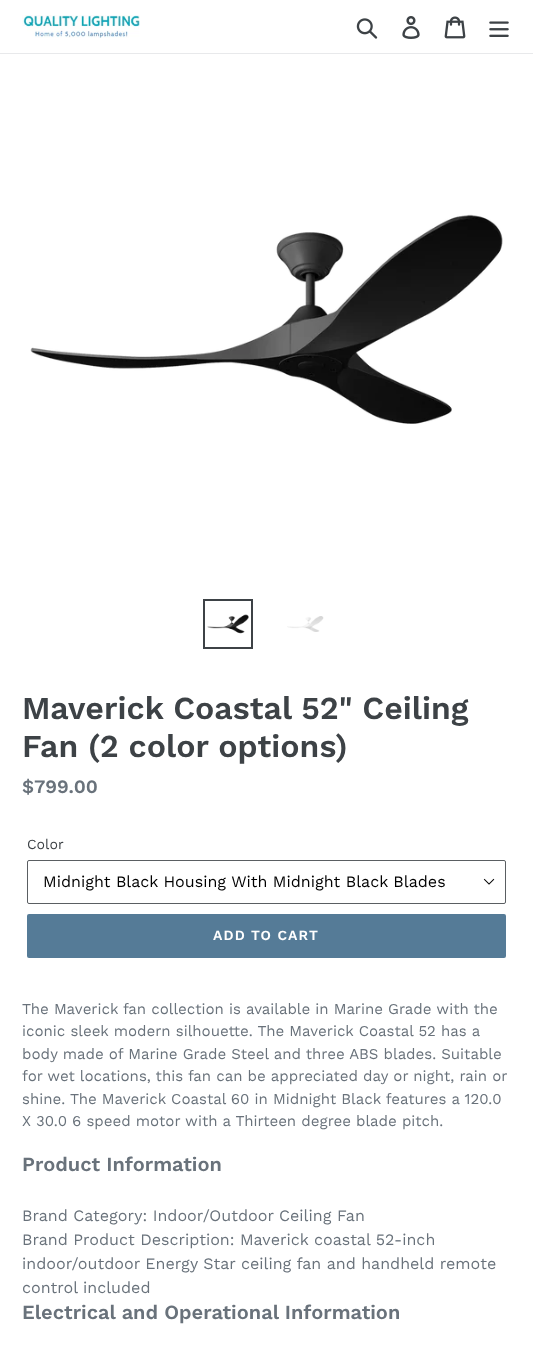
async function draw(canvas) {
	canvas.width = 533;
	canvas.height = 1346;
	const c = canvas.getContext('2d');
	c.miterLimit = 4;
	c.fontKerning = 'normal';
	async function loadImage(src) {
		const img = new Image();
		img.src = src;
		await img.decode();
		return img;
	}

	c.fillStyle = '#fff';
	c.fillRect(0, 0, 533, 1346);
	c.fillStyle = '#e8e9eb';
	c.fillRect(0, 53, 533, 1);
	c.drawImage(await loadImage('img1.png'), 22, 15, 118, 23);
	c.drawImage(await loadImage('img2.png'), 356, 18, 22, 21);
	c.drawImage(await loadImage('img3.png'), 402, 16, 18, 23);
	c.drawImage(await loadImage('img4.png'), 444, 16, 22, 23);
	c.drawImage(await loadImage('img5.png'), 489, 21, 20, 16);
	c.drawImage(await loadImage('img6.png'), 30, 214, 473, 210);
	c.strokeStyle = '#3d4246';
	c.lineWidth = 2;
	c.strokeRect(204, 600, 48, 48);
	c.drawImage(await loadImage('img7.png'), 207, 614, 42, 20);
	c.drawImage(await loadImage('img8.png'), 287, 616, 37, 16);
	c.font = '600 32px Work Sans';
	c.fillStyle = '#3d4246';
	c.fillText('Maverick Coastal 52" Ceiling', 22, 719);
	c.fillText('Fan (2 color options)', 22, 757);
	c.font = '600 19px Work Sans';
	c.fillStyle = '#69727b';
	c.fillText('$799.00', 22, 793);
	c.font = '14px Work Sans';
	c.fillStyle = '#3d4246';
	c.fillText('Color', 27, 849);
	c.drawImage(await loadImage('img9.png'), 483, 878, 12, 7);
	c.beginPath();
	c.roundRect(27.5, 860.5, 478, 43, 1.5);
	c.strokeStyle = '#5a5e62';
	c.lineWidth = 1;
	c.stroke();
	c.font = '16px Work Sans';
	c.fillStyle = '#000';
	c.fillText('Midnight Black Housing With Midnight Black Blades', 43, 887);
	c.fillStyle = '#557b97';
	c.beginPath();
	c.roundRect(27, 914, 479, 44, 2);
	c.fill();
	c.letterSpacing = '1.1px';
	c.font = '600 14px Work Sans';
	c.fillStyle = '#fff';
	c.fillText('ADD TO CART', 213, 940);
	c.letterSpacing = '0px';
	c.font = '15px Work Sans';
	c.fillStyle = '#69727b';
	for (const [text, x, y] of [
		['The Maverick fan collection is available in Marine Grade with the', 22, 1014],
		['iconic sleek modern silhouette. The Maverick Coastal 52 has a', 22, 1036],
		['body made of Marine Grade Steel and three ABS blades. Suitable', 22, 1059],
		['for wet locations, this fan can be appreciated day or night, rain or', 22, 1081],
		['shine. The Maverick Coastal 60 in Midnight Black features a 120.0', 22, 1104],
		['X 30.0 6 speed motor with a Thirteen degree blade pitch.', 22, 1126],
	]) {
		c.fillText(text, x, y);
	}
	c.font = '600 20px Work Sans';
	c.fillText('Product Information', 22, 1171);
	c.font = '16px Work Sans';
	for (const [text, x, y] of [
		['Brand Category: Indoor/Outdoor Ceiling Fan', 22, 1221],
		['Brand Product Description: Maverick coastal 52-inch', 22, 1245],
		['indoor/outdoor Energy Star ceiling fan and handheld remote', 22, 1269],
		['control included', 22, 1293],
	]) {
		c.fillText(text, x, y);
	}
	c.font = '600 20px Work Sans';
	c.fillText('Electrical and Operational Information', 22, 1319);
}

draw(document.querySelector('canvas'));
